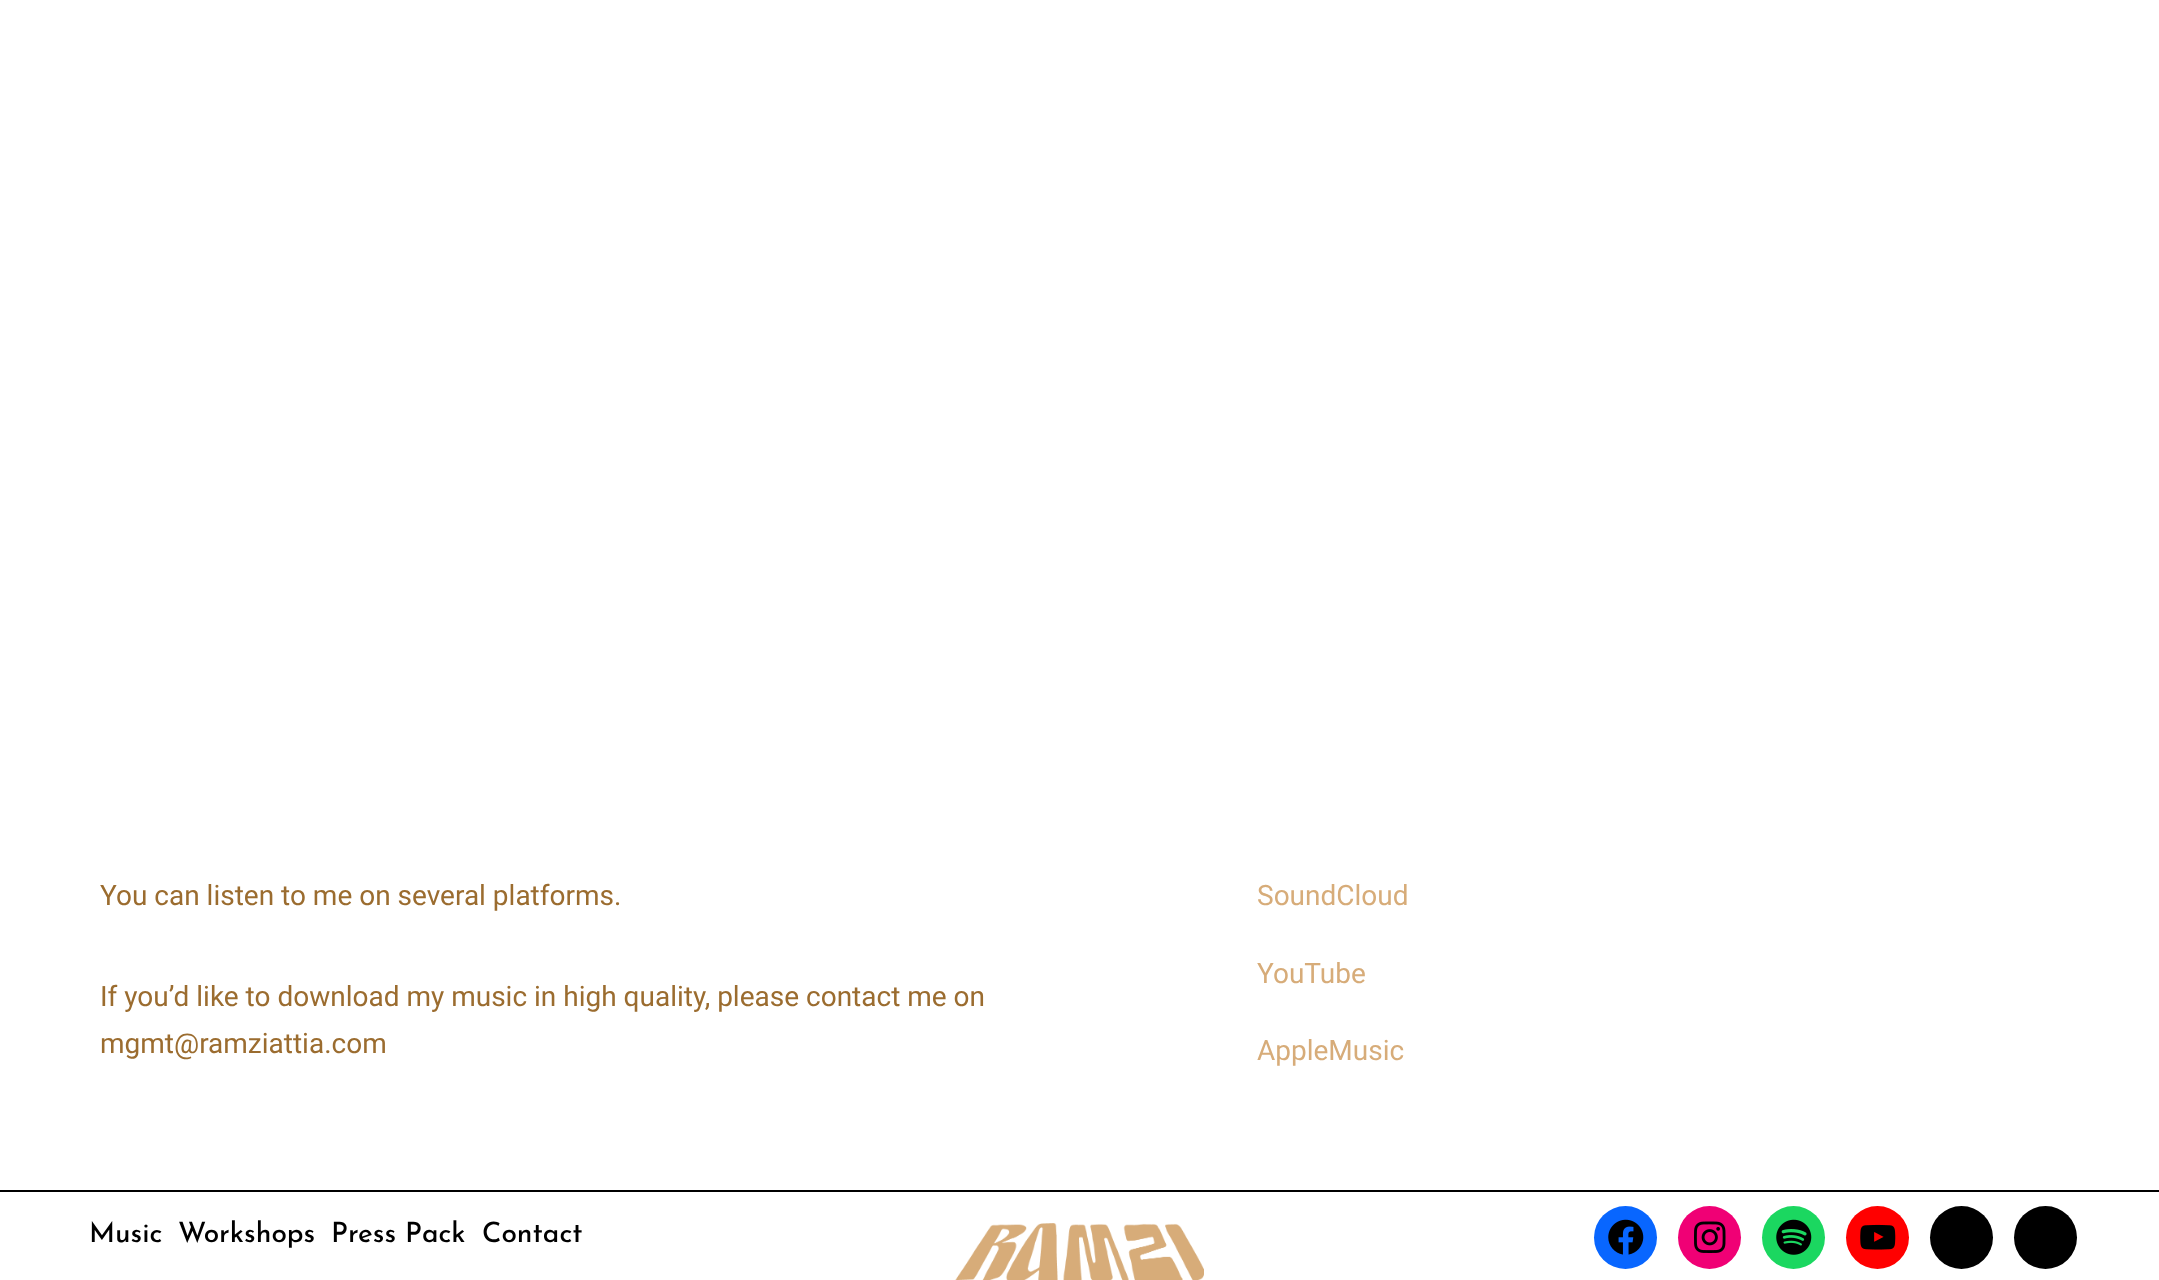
async function draw(canvas) {
	canvas.width = 2159;
	canvas.height = 1280;
	const c = canvas.getContext('2d');
	c.miterLimit = 4;
	c.fontKerning = 'normal';
	async function loadImage(src) {
		const img = new Image();
		img.src = src;
		await img.decode();
		return img;
	}

	c.fillStyle = '#fff';
	c.fillRect(0, 0, 2159, 1280);
	c.font = '28px Roboto';
	c.fillStyle = '#9b6c2f';
	for (const [text, x, y] of [
		['You can listen to me on several platforms.', 100, 905],
		['If you’d like to download my music in high quality, please contact me on', 100, 1006],
		['mgmt@ramziattia.com', 100, 1053],
	]) {
		c.fillText(text, x, y);
	}
	c.fillStyle = '#d7ac79';
	for (const [text, x, y] of [
		['SoundCloud', 1257, 905],
		['YouTube', 1257, 983],
		['AppleMusic', 1257, 1060],
	]) {
		c.fillText(text, x, y);
	}
	c.fillStyle = '#000';
	c.fillRect(0, 1190, 2159, 2);
	c.font = '500 28px Josefin Sans';
	for (const [text, x, y] of [
		['Music', 89, 1242],
		['Workshops', 178, 1242],
		['Press Pack', 331, 1242],
		['Contact', 482, 1242],
	]) {
		c.fillText(text, x, y);
	}
	c.drawImage(await loadImage('img1.png'), 955, 1223, 249, 57);
	c.fillStyle = '#0866ff';
	c.beginPath();
	c.arc(1625.5, 1237.5, 31.5, 0, 2 * Math.PI);
	c.fill();
	c.drawImage(await loadImage('img2.png'), 1608, 1219, 36, 36);
	c.fillStyle = '#f00075';
	c.beginPath();
	c.arc(1709.5, 1237.5, 31.5, 0, 2 * Math.PI);
	c.fill();
	c.drawImage(await loadImage('img3.png'), 1694, 1221, 32, 32);
	c.fillStyle = '#1bd760';
	c.beginPath();
	c.arc(1793.5, 1237.5, 31.5, 0, 2 * Math.PI);
	c.fill();
	c.drawImage(await loadImage('img4.png'), 1776, 1219, 36, 36);
	c.fillStyle = '#f00';
	c.beginPath();
	c.arc(1877.5, 1237.5, 31.5, 0, 2 * Math.PI);
	c.fill();
	c.drawImage(await loadImage('img5.png'), 1860, 1224, 36, 26);
	c.fillStyle = '#000';
	c.beginPath();
	c.arc(1961.5, 1237.5, 31.5, 0, 2 * Math.PI);
	c.fill();
	c.beginPath();
	c.arc(2045.5, 1237.5, 31.5, 0, 2 * Math.PI);
	c.fill();
}

draw(document.querySelector('canvas'));
